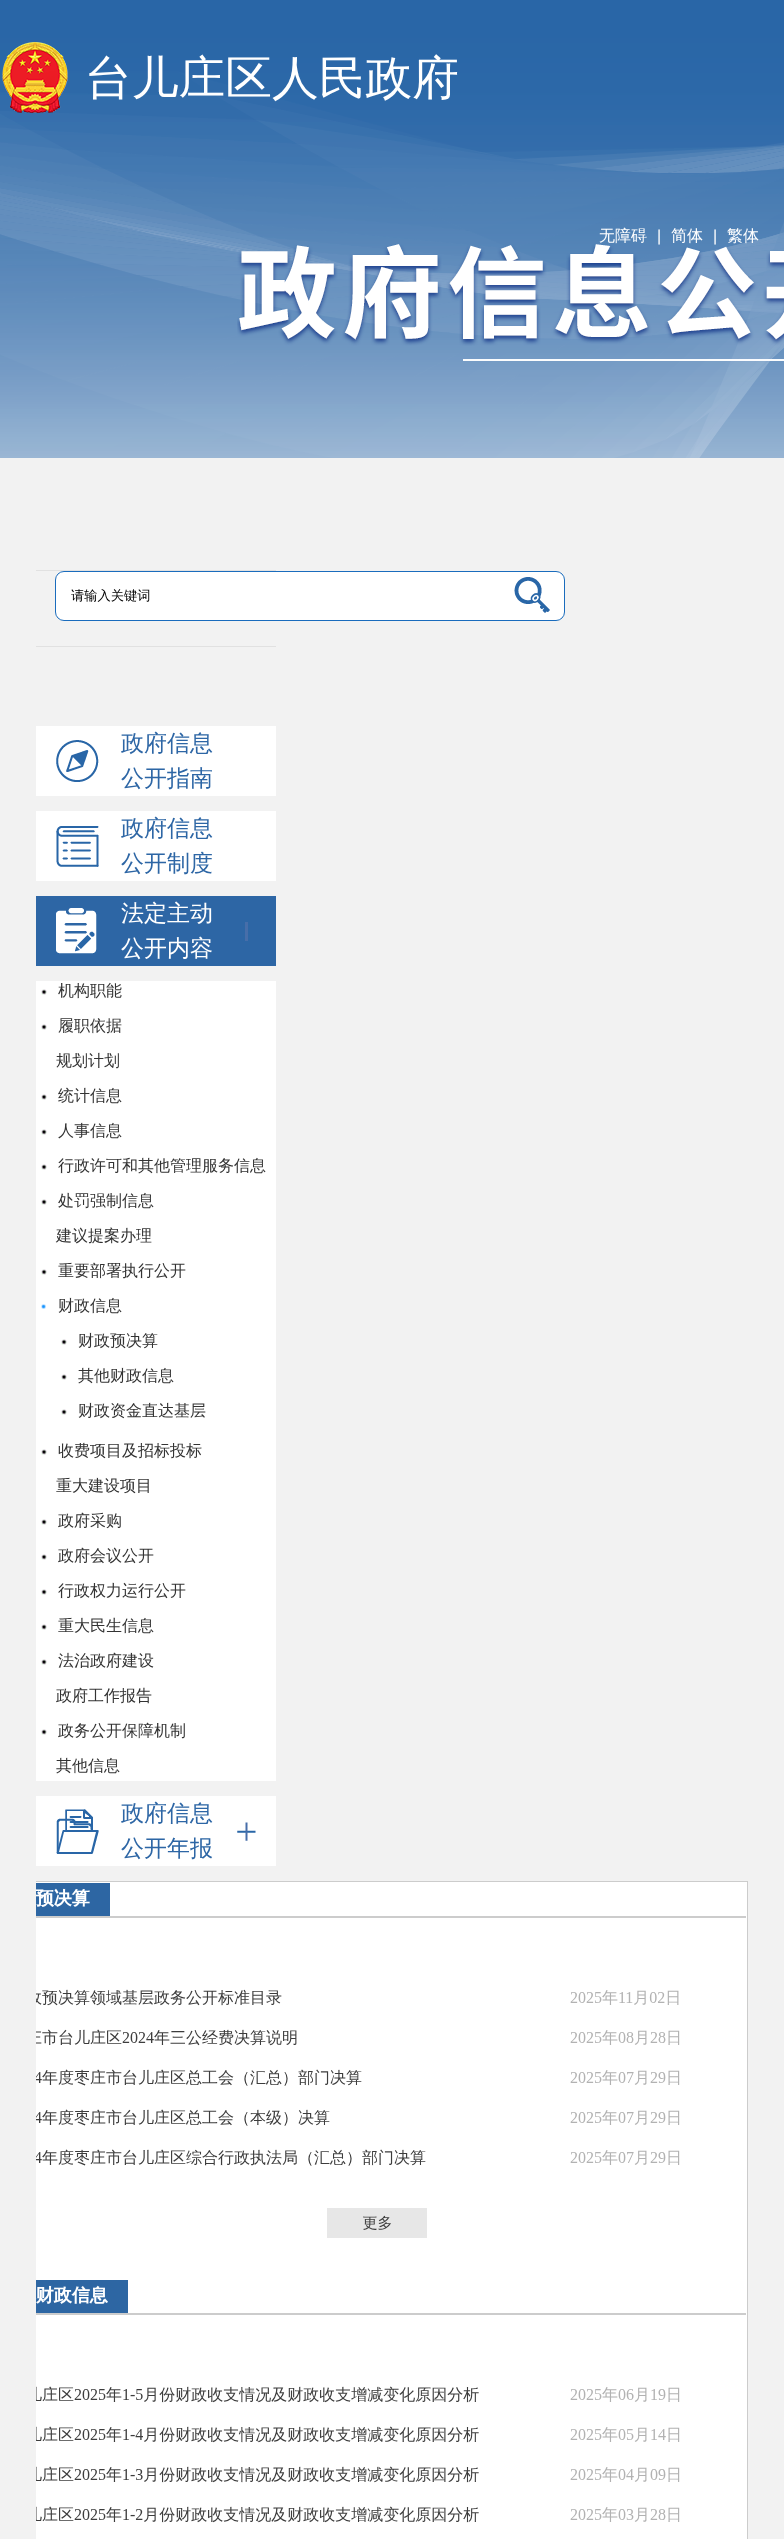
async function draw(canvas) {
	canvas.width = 784;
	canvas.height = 2539;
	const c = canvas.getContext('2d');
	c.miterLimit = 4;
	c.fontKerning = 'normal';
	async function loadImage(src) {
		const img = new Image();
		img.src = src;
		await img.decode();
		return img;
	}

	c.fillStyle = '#fff';
	c.fillRect(0, 0, 784, 2539);
	c.drawImage(await loadImage('img1.png'), 0, 0, 784, 458);
	c.drawImage(await loadImage('img2.png'), 2, 42, 66, 71);
	c.font = '500 46.75px WenQuanYi Zen Hei';
	c.fillText('台儿庄区人民政府', 85, 94);
	c.font = '500 16px WenQuanYi Zen Hei';
	c.fillText('无障碍', 599, 241);
	c.font = '16px Liberation Sans';
	c.fillText('|', 657, 241);
	c.font = '500 16px WenQuanYi Zen Hei';
	c.fillText('简体', 671, 241);
	c.font = '16px Liberation Sans';
	c.fillText('|', 713, 241);
	c.font = '500 16px WenQuanYi Zen Hei';
	c.fillText('繁体', 727, 241);
	c.drawImage(await loadImage('img3.png'), 237, 244, 547, 117);
	c.fillStyle = '#f2f2f2';
	c.fillRect(0, 458, 784, 2081);
	c.fillStyle = '#e1e1e1';
	c.fillRect(36, 570, 240, 1);
	c.fillStyle = '#fff';
	c.beginPath();
	c.roundRect(55.5, 571.5, 509, 49, 8.5);
	c.fill();
	c.strokeStyle = '#1a6cbd';
	c.stroke();
	c.font = '500 13.25px WenQuanYi Zen Hei';
	c.fillStyle = '#000';
	c.fillText('请输入关键词', 71, 600);
	c.drawImage(await loadImage('img4.png'), 514, 577, 36, 36);
	c.fillStyle = '#e1e1e1';
	c.fillRect(36, 646, 240, 1);
	c.fillStyle = '#fff';
	c.fillRect(36, 726, 240, 70);
	c.drawImage(await loadImage('img5.png'), 56, 740, 43, 42);
	c.font = '500 23px WenQuanYi Zen Hei';
	c.fillStyle = '#2d66a5';
	c.fillText('政府信息', 121, 751);
	c.fillText('公开指南', 121, 786);
	c.fillStyle = '#fff';
	c.fillRect(36, 811, 240, 70);
	c.drawImage(await loadImage('img6.png'), 56, 826, 43, 41);
	c.fillStyle = '#2d66a5';
	c.fillText('政府信息', 121, 836);
	c.fillText('公开制度', 121, 871);
	c.fillRect(36, 896, 240, 70);
	c.drawImage(await loadImage('img7.png'), 56, 908, 41, 46);
	c.fillStyle = '#fff';
	c.fillText('法定主动', 121, 921);
	c.fillStyle = '#476ea9';
	c.fillRect(245, 922, 3, 19);
	c.fillStyle = '#fff';
	c.fillText('公开内容', 121, 956);
	c.fillRect(36, 981, 240, 800);
	c.drawImage(await loadImage('img8.png'), 41, 989, 6, 6);
	c.font = '500 16px WenQuanYi Zen Hei';
	c.fillStyle = '#333';
	c.fillText('机构职能', 58, 996);
	c.drawImage(await loadImage('img8.png'), 41, 1024, 6, 6);
	c.fillText('履职依据', 58, 1031);
	c.fillText('规划计划', 56, 1066);
	c.drawImage(await loadImage('img8.png'), 41, 1094, 6, 6);
	c.fillText('统计信息', 58, 1101);
	c.drawImage(await loadImage('img8.png'), 41, 1129, 6, 6);
	c.fillText('人事信息', 58, 1136);
	c.drawImage(await loadImage('img8.png'), 41, 1164, 6, 6);
	c.fillText('行政许可和其他管理服务信息', 58, 1171);
	c.drawImage(await loadImage('img8.png'), 41, 1199, 6, 6);
	c.fillText('处罚强制信息', 58, 1206);
	c.fillText('建议提案办理', 56, 1241);
	c.drawImage(await loadImage('img8.png'), 41, 1269, 6, 6);
	c.fillText('重要部署执行公开', 58, 1276);
	c.drawImage(await loadImage('img9.png'), 41, 1304, 5, 5);
	c.fillText('财政信息', 58, 1311);
	c.drawImage(await loadImage('img8.png'), 61, 1339, 6, 6);
	c.fillText('财政预决算', 78, 1346);
	c.drawImage(await loadImage('img8.png'), 61, 1374, 6, 6);
	c.fillText('其他财政信息', 78, 1381);
	c.drawImage(await loadImage('img8.png'), 61, 1409, 6, 6);
	c.fillText('财政资金直达基层', 78, 1416);
	c.drawImage(await loadImage('img8.png'), 41, 1449, 6, 6);
	c.fillText('收费项目及招标投标', 58, 1456);
	c.fillText('重大建设项目', 56, 1491);
	c.drawImage(await loadImage('img8.png'), 41, 1519, 6, 6);
	c.fillText('政府采购', 58, 1526);
	c.drawImage(await loadImage('img8.png'), 41, 1554, 6, 6);
	c.fillText('政府会议公开', 58, 1561);
	c.drawImage(await loadImage('img8.png'), 41, 1589, 6, 6);
	c.fillText('行政权力运行公开', 58, 1596);
	c.drawImage(await loadImage('img8.png'), 41, 1624, 6, 6);
	c.fillText('重大民生信息', 58, 1631);
	c.drawImage(await loadImage('img8.png'), 41, 1659, 6, 6);
	c.fillText('法治政府建设', 58, 1666);
	c.fillText('政府工作报告', 56, 1701);
	c.drawImage(await loadImage('img8.png'), 41, 1729, 6, 6);
	c.fillText('政务公开保障机制', 58, 1736);
	c.fillText('其他信息', 56, 1771);
	c.fillStyle = '#fff';
	c.fillRect(36, 1796, 240, 70);
	c.drawImage(await loadImage('img10.png'), 56, 1809, 43, 45);
	c.font = '500 23px WenQuanYi Zen Hei';
	c.fillStyle = '#2d66a5';
	c.fillText('政府信息', 121, 1821);
	c.drawImage(await loadImage('img11.png'), 237, 1822, 19, 19);
	c.fillText('公开年报', 121, 1856);
	c.fillStyle = '#fff';
	c.fillRect(36, 1882, 711, 657);
	c.drawImage(await loadImage('img12.png'), 36, 1881, 712, 658);
}

draw(document.querySelector('canvas'));
